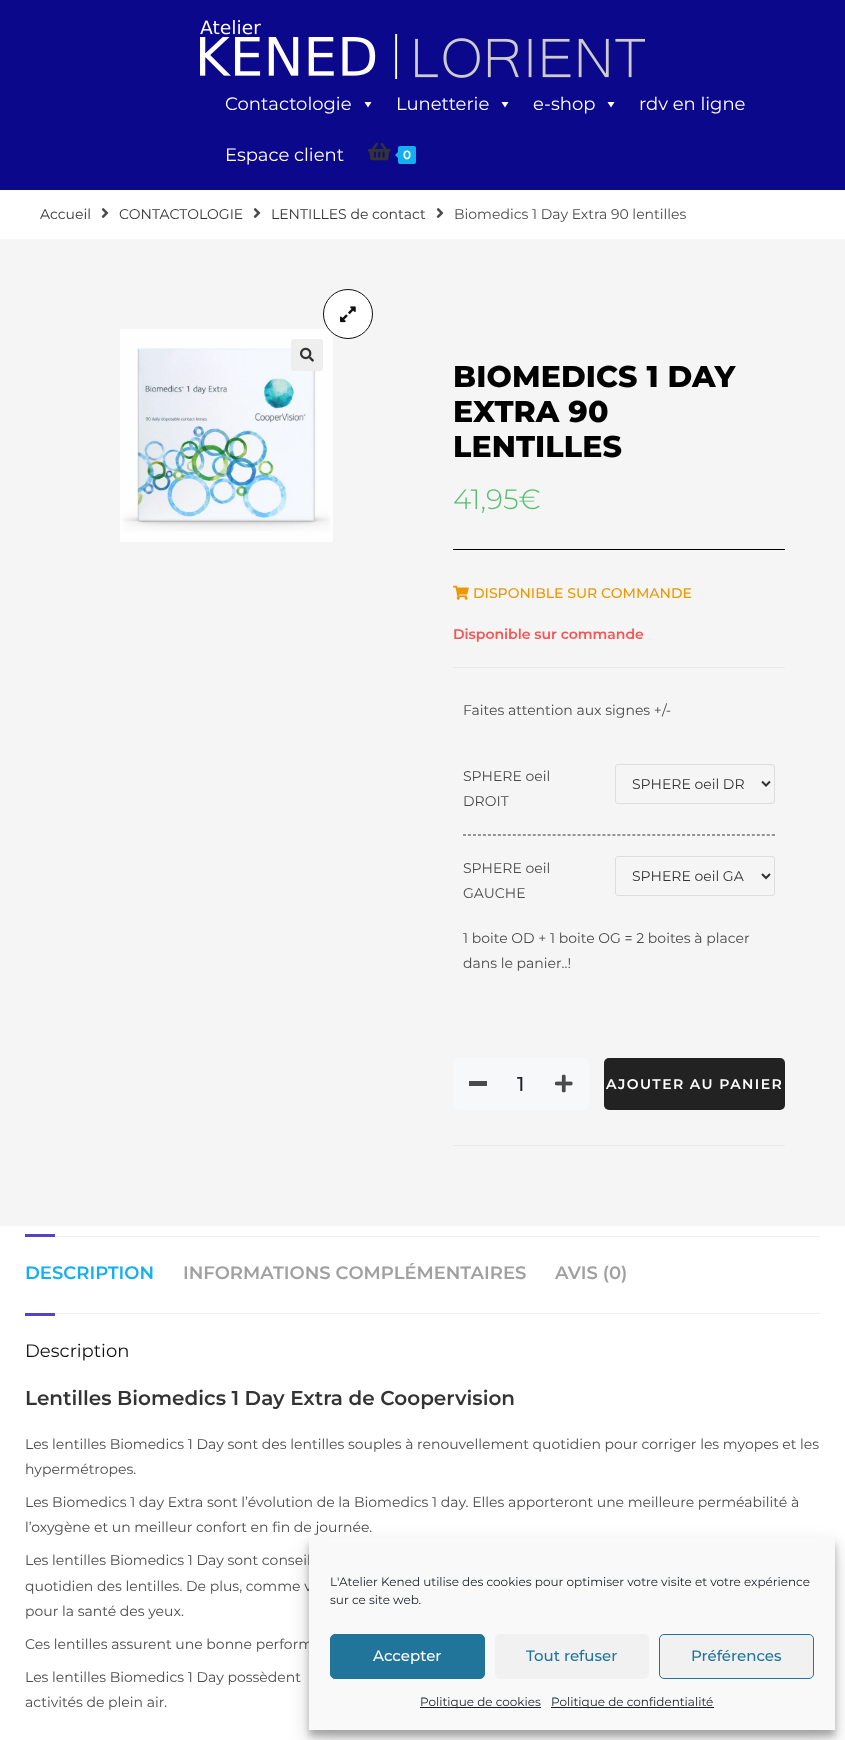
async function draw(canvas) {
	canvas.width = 845;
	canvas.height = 1740;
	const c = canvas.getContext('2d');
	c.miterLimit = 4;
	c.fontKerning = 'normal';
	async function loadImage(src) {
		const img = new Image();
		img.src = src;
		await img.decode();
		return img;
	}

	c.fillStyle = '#fff';
	c.fillRect(0, 0, 845, 1740);
	c.fillStyle = '#0c088c';
	c.fillRect(0, 0, 845, 190);
	c.drawImage(await loadImage('img1.png'), 200, 20, 445, 59);
	c.font = '100 18px Montserrat';
	c.fillStyle = '#fff';
	c.fillText('Contactologie', 225, 110);
	c.beginPath();
	c.moveTo(371.5, 102);
	c.lineTo(368, 107.5);
	c.lineTo(364.5, 102);
	c.closePath();
	c.fill();
	c.fillText('Lunetterie', 396, 110);
	c.beginPath();
	c.moveTo(508.5, 102);
	c.lineTo(505, 107.5);
	c.lineTo(501.5, 102);
	c.closePath();
	c.fill();
	c.fillText('e-shop', 533, 110);
	c.beginPath();
	c.moveTo(614.5, 102);
	c.lineTo(611, 107.5);
	c.lineTo(607.5, 102);
	c.closePath();
	c.fill();
	c.fillText('rdv en ligne', 639, 110);
	c.fillText('Espace client', 225, 161);
	c.drawImage(await loadImage('img2.png'), 368, 142, 23, 19);
	c.fillStyle = '#13aff0';
	c.beginPath();
	c.roundRect(398, 146, 18, 18, 2);
	c.fill();
	c.beginPath();
	c.moveTo(400, 150);
	c.lineTo(400, 160);
	c.lineTo(395, 155);
	c.closePath();
	c.fill();
	c.font = '100 12px "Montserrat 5"';
	c.fillStyle = '#fff';
	c.fillText('0', 403, 159);
	c.font = '100 14px Montserrat';
	c.fillStyle = '#333';
	c.fillText('Accueil', 40, 219);
	c.drawImage(await loadImage('img3.png'), 101, 208, 8, 10);
	c.fillText('CONTACTOLOGIE', 119, 219);
	c.drawImage(await loadImage('img3.png'), 253, 208, 8, 10);
	c.fillText('LENTILLES de contact', 271, 219);
	c.drawImage(await loadImage('img3.png'), 436, 208, 8, 10);
	c.fillStyle = '#4a4a4a';
	c.fillText('Biomedics 1 Day Extra 90 lentilles', 454, 219);
	c.fillStyle = '#f5f5f5';
	c.fillRect(0, 239, 845, 987);
	c.drawImage(await loadImage('img5.png'), 120, 329, 213, 213);
	c.fillStyle = '#fff';
	c.beginPath();
	c.arc(348, 314, 24.5, 0, 2 * Math.PI);
	c.fill();
	c.strokeStyle = '#101010';
	c.stroke();
	c.drawImage(await loadImage('img4.png'), 340, 306, 16, 17);
	c.fillStyle = '#eee';
	c.beginPath();
	c.roundRect(291, 339, 32, 32, 3);
	c.fill();
	c.drawImage(await loadImage('img6.png'), 300, 347, 14, 15);
	c.letterSpacing = '0.1px';
	c.font = '100 30px "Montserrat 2"';
	c.fillStyle = '#000';
	for (const [text, x, y] of [
		['BIOMEDICS 1 DAY', 453, 387],
		['EXTRA 90', 453, 422],
		['LENTILLES', 453, 457],
	]) {
		c.fillText(text, x, y);
	}
	c.letterSpacing = '0px';
	c.font = '100 28px "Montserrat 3"';
	c.fillStyle = '#57bf6d';
	c.fillText('41,95€', 453, 509);
	c.fillStyle = '#000';
	c.fillRect(453, 549, 332, 1);
	c.drawImage(await loadImage('img7.png'), 453, 585, 16, 15);
	c.font = '100 14px "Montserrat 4"';
	c.fillStyle = '#ee9800';
	c.fillText('DISPONIBLE SUR COMMANDE', 473, 598);
	c.font = '100 14px "Montserrat 5"';
	c.fillStyle = '#fe5252';
	c.fillText('Disponible sur commande', 453, 639);
	c.fillStyle = '#eaeaea';
	c.fillRect(453, 667, 332, 1);
	c.fillRect(453, 1145, 332, 1);
	c.font = '100 14px Montserrat';
	c.fillStyle = '#4a4a4a';
	for (const [text, x, y] of [
		['Faites attention aux signes +/-', 463, 715],
		['SPHERE oeil', 463, 781],
		['DROIT', 463, 806],
	]) {
		c.fillText(text, x, y);
	}
	c.beginPath();
	c.roundRect(615.5, 764.5, 159, 39, 2.5);
	c.strokeStyle = '#ddd';
	c.stroke();
	c.beginPath();
	c.moveTo(762, 781.5);
	c.lineTo(766, 785.5);
	c.lineTo(770, 781.5);
	c.strokeStyle = '#333';
	c.lineWidth = 2;
	c.stroke();
	c.fillStyle = '#333';
	c.fillText('SPHERE oeil DR', 632, 789);
	c.beginPath();
	c.moveTo(463, 834.5);
	c.lineTo(775, 834.5);
	c.strokeStyle = '#959595';
	c.lineWidth = 1;
	c.setLineDash([3, 1.98]);
	c.stroke();
	c.fillStyle = '#959595';
	c.fillRect(774, 834, 1, 2);
	c.beginPath();
	c.moveTo(463, 835.5);
	c.lineTo(775, 835.5);
	c.stroke();
	c.fillStyle = '#4a4a4a';
	c.fillText('SPHERE oeil', 463, 873);
	c.fillText('GAUCHE', 463, 898);
	c.beginPath();
	c.roundRect(615.5, 856.5, 159, 39, 2.5);
	c.strokeStyle = '#ddd';
	c.setLineDash([]);
	c.stroke();
	c.beginPath();
	c.moveTo(762, 874);
	c.lineTo(766, 878);
	c.lineTo(770, 874);
	c.strokeStyle = '#333';
	c.lineWidth = 2;
	c.stroke();
	c.fillStyle = '#333';
	c.fillText('SPHERE oeil GA', 632, 881);
	c.fillStyle = '#4a4a4a';
	c.fillText('1 boite OD + 1 boite OG = 2 boites à placer', 463, 943);
	c.fillText('dans le panier..!', 463, 968);
	c.fillStyle = '#f7f8fa';
	c.beginPath();
	c.roundRect(453, 1058, 136, 52, 5);
	c.fill();
	c.fillStyle = '#4a4a4a';
	c.fillRect(469, 1081, 18, 5);
	c.font = '100 20px "Montserrat 4"';
	c.fillStyle = '#212529';
	c.fillText('1', 517, 1091);
	c.drawImage(await loadImage('img8.png'), 555, 1074, 18, 19);
	c.fillStyle = '#222';
	c.beginPath();
	c.roundRect(604, 1058, 181, 52, 5);
	c.fill();
	c.letterSpacing = '1.4px';
	c.font = '100 14px "Montserrat 5"';
	c.fillStyle = '#fff';
	c.fillText('AJOUTER AU PANIER', 606, 1089);
	for (const [x, y, w, h, color] of [
		[55, 1236, 765, 1, '#efefef'],
		[55, 1313, 765, 1, '#efefef'],
		[25, 1234, 30, 3, '#5642c7'],
		[25, 1313, 30, 3, '#5642c7'],
	]) {
		c.fillStyle = color;
		c.fillRect(x, y, w, h);
	}
	c.letterSpacing = '0px';
	c.font = '100 18px "Montserrat 5"';
	c.fillStyle = '#a0a0a0';
	c.fillText('INFORMATIONS COMPLÉMENTAIRES', 183, 1279);
	c.fillText('AVIS (0)', 555, 1279);
	c.fillStyle = '#13aff0';
	c.fillText('DESCRIPTION', 25, 1279);
	c.font = '100 18px Montserrat';
	c.fillStyle = '#101010';
	c.fillText('Description', 25, 1357);
	c.font = '100 20px "Montserrat 5"';
	c.fillStyle = '#333';
	c.fillText('Lentilles Biomedics 1 Day Extra de Coopervision', 25, 1405);
	c.font = '100 14px Montserrat';
	c.fillStyle = '#4a4a4a';
	for (const [text, x, y] of [
		['Les lentilles Biomedics 1 Day sont des lentilles souples à renouvellement quotidien pour corriger les myopes et les', 25, 1449],
		['hypermétropes.', 25, 1474],
		['Les Biomedics 1 day Extra sont l’évolution de la Biomedics 1 day. Elles apporteront une meilleure perméabilité à', 25, 1507],
		['l’oxygène et un meilleur confort en fin de journée.', 25, 1532],
		['Les lentilles Biomedics 1 Day sont conseil', 25, 1565],
		['quotidien des lentilles. De plus, comme v', 25, 1591],
		['pour la santé des yeux.', 25, 1616],
		['Ces lentilles assurent une bonne perform', 25, 1649],
		['Les lentilles Biomedics 1 Day possèdent', 25, 1682],
		['activités de plein air.', 25, 1707],
	]) {
		c.fillText(text, x, y);
	}
	c.fillStyle = '#0000003b';
	c.filter = 'blur(3px)';
	c.beginPath();
	c.rect(309, 1543, 526, 193);
	c.fill();
	c.filter = 'none';
	c.fillStyle = '#00000030';
	c.filter = 'blur(10px)';
	c.beginPath();
	c.rect(309, 1547, 526, 193);
	c.fill();
	c.filter = 'none';
	c.fillStyle = '#f9f9f9';
	c.fillRect(309, 1537, 526, 193);
	c.font = '100 12px Montserrat';
	c.fillStyle = '#191e23';
	c.fillText('L\'Atelier Kened utilise des cookies pour optimiser votre visite et votre expérience', 330, 1586);
	c.fillText('sur ce site web.', 330, 1604);
	c.fillStyle = '#21759b';
	c.beginPath();
	c.roundRect(330.5, 1634.5, 154, 44, 4.5);
	c.fill();
	c.strokeStyle = '#21759b';
	c.lineWidth = 1;
	c.stroke();
	c.font = '100 15px "Montserrat 4"';
	c.fillStyle = '#fff';
	c.fillText('Accepter', 373, 1661);
	c.fillStyle = '#f1f1f1';
	c.beginPath();
	c.roundRect(495, 1634, 154, 45, 5);
	c.fill();
	c.fillStyle = '#21759b';
	c.fillText('Tout refuser', 526, 1661);
	c.fillStyle = '#f1f1f1';
	c.beginPath();
	c.roundRect(659.5, 1634.5, 154, 44, 4.5);
	c.fill();
	c.stroke();
	c.fillStyle = '#21759b';
	c.fillText('Préférences', 691, 1661);
	c.fillStyle = '#191e23';
	c.fillRect(420, 1707, 121, 1);
	c.font = '100 12px Montserrat';
	c.fillText('Politique de cookies', 420, 1706);
	c.fillRect(551, 1707, 163, 1);
	c.fillText('Politique de confidentialité', 551, 1706);
}

draw(document.querySelector('canvas'));
